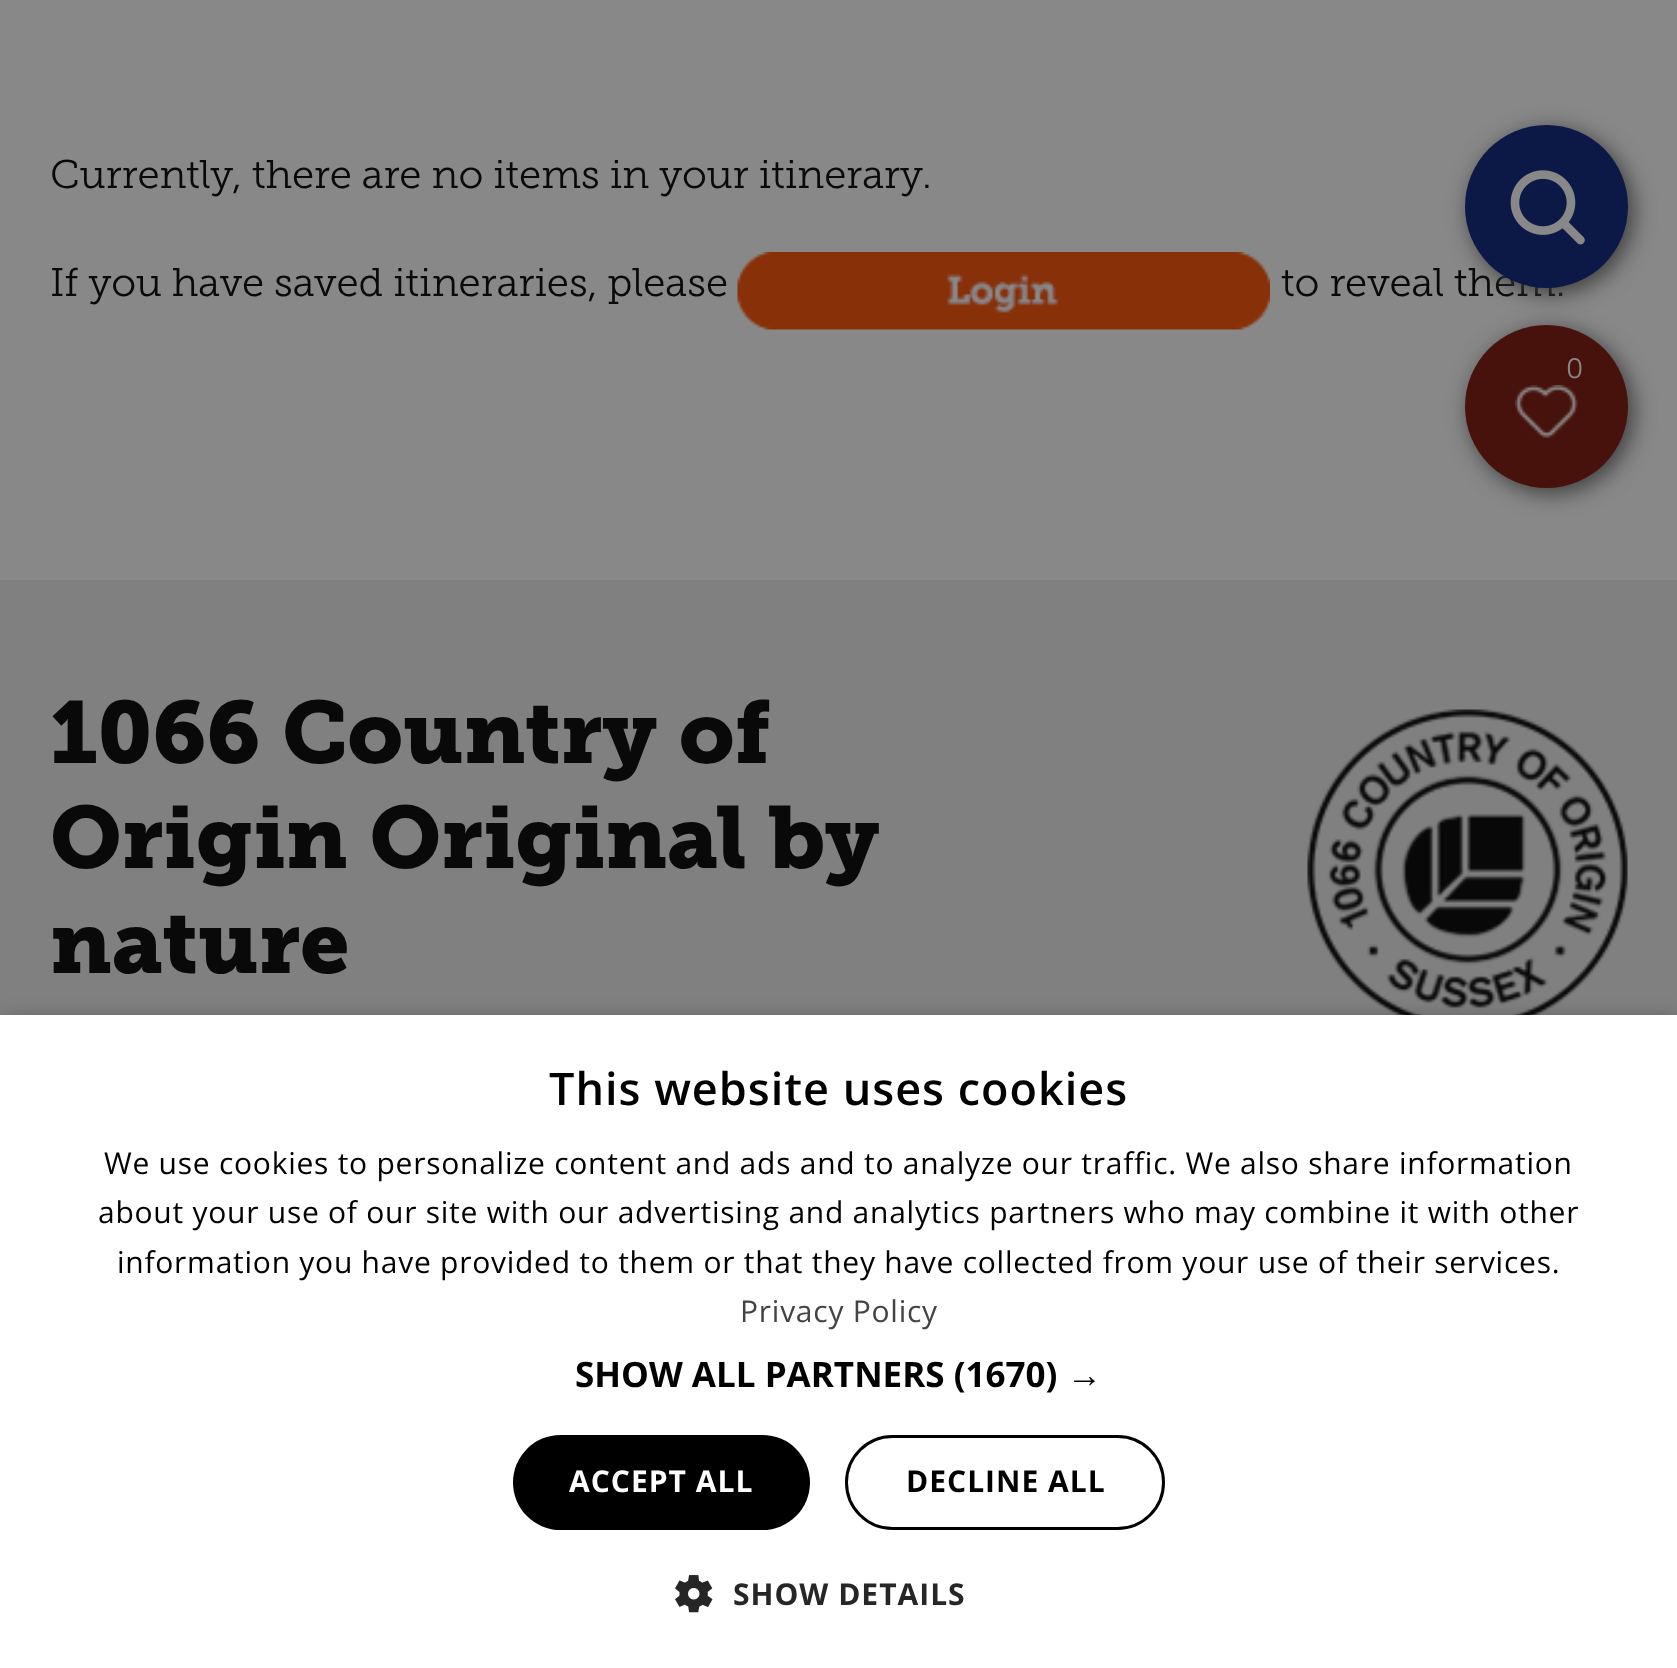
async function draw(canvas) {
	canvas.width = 1677;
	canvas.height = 1668;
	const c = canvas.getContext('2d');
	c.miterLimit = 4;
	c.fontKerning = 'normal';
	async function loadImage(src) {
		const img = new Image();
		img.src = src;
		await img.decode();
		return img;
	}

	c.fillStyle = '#888';
	c.fillRect(0, 0, 1677, 1668);
	c.font = '300 40px Museo Slab';
	c.fillStyle = '#090909';
	c.fillText('Currently, there are no items in your itinerary.', 50, 188);
	c.fillText('If you have saved itineraries, please', 50, 296);
	c.drawImage(await loadImage('img1.png'), 737, 252, 533, 78);
	c.fillText('to reveal them.', 1281, 296);
	c.fillStyle = '#3c3c3c';
	c.filter = 'blur(11px)';
	c.beginPath();
	c.roundRect(1470, 130, 163, 163, 81.5);
	c.fill();
	c.filter = 'none';
	c.fillStyle = '#0c1947';
	c.beginPath();
	c.arc(1546.5, 206.5, 81.5, 0, 2 * Math.PI);
	c.fill();
	c.drawImage(await loadImage('img2.png'), 1510, 170, 75, 75);
	c.fillStyle = '#3c3c3c';
	c.filter = 'blur(11px)';
	c.beginPath();
	c.roundRect(1470, 330, 163, 163, 81.5);
	c.fill();
	c.filter = 'none';
	c.fillStyle = '#47110c';
	c.beginPath();
	c.arc(1546.5, 406.5, 81.5, 0, 2 * Math.PI);
	c.fill();
	c.drawImage(await loadImage('img3.png'), 1515, 385, 63, 53);
	c.font = '300 28px Museo Slab';
	c.fillStyle = '#888';
	c.fillText('0', 1566, 378);
	c.fillStyle = '#808080';
	c.fillRect(0, 580, 1677, 435);
	c.font = 'bold 87.5px Museo Slab';
	c.fillStyle = '#090909';
	for (const [text, x, y] of [
		['1066 Country of', 50, 763],
		['Origin Original by', 50, 868],
		['nature', 50, 973],
	]) {
		c.fillText(text, x, y);
	}
	c.drawImage(await loadImage('img4.png'), 1307, 709, 321, 306);
	c.fillStyle = '#00000059';
	c.filter = 'blur(10px)';
	c.beginPath();
	c.rect(3, 1020, 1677, 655);
	c.fill();
	c.filter = 'none';
	c.fillStyle = '#fff';
	c.fillRect(0, 1015, 1677, 653);
	c.letterSpacing = '1px';
	c.font = '600 45px Open Sans';
	c.fillStyle = '#000';
	c.fillText('This website uses cookies', 549, 1105);
	c.letterSpacing = '0.75px';
	c.font = '30px Open Sans';
	for (const [text, x, y] of [
		['We use cookies to personalize content and ads and to analyze our traffic. We also share information', 104, 1174],
		['about your use of our site with our advertising and analytics partners who may combine it with other', 98, 1223],
		['information you have provided to them or that they have collected from your use of their services.', 117, 1273],
	]) {
		c.fillText(text, x, y);
	}
	c.fillStyle = '#444';
	c.fillText('Privacy Policy', 740, 1322);
	c.letterSpacing = '0px';
	c.font = 'bold 35px Open Sans';
	c.fillStyle = '#000';
	c.fillText('SHOW ALL PARTNERS (1670)', 575, 1387);
	c.font = 'bold 35px Liberation Sans';
	c.fillText('→', 1067, 1387);
	c.beginPath();
	c.roundRect(513, 1435, 297, 95, 47.5);
	c.fill();
	c.letterSpacing = '1px';
	c.font = 'bold 30px Open Sans';
	c.fillStyle = '#fff';
	c.fillText('ACCEPT ALL', 569, 1492);
	c.beginPath();
	c.roundRect(846.5, 1436.5, 317, 92, 46);
	c.strokeStyle = '#000';
	c.lineWidth = 3;
	c.stroke();
	c.fillStyle = '#000';
	c.fillText('DECLINE ALL', 906, 1492);
	c.drawImage(await loadImage('img5.png'), 675, 1575, 38, 38);
	c.fillStyle = '#262626';
	c.fillText('SHOW DETAILS', 733, 1605);
}

draw(document.querySelector('canvas'));
